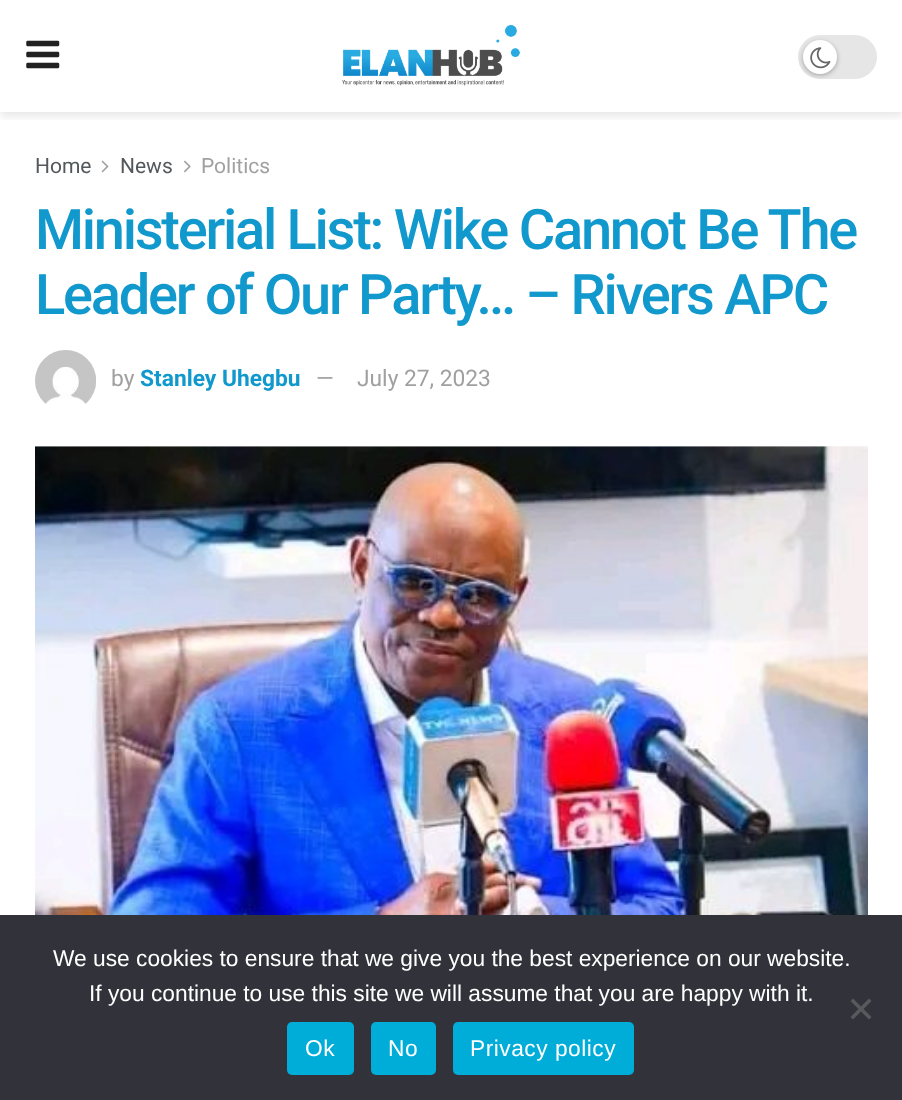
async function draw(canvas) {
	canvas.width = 902;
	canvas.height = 1100;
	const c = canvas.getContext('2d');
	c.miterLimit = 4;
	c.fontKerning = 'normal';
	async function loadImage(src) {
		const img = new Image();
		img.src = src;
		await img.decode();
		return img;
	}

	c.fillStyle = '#fff';
	c.fillRect(0, 0, 902, 1100);
	c.save();
	c.beginPath();
	c.rect(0, 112, 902, 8);
	c.clip();
	c.fillStyle = '#0000001a';
	c.filter = 'blur(5px)';
	c.beginPath();
	c.rect(0, 4, 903, 112);
	c.fill();
	c.filter = 'none';
	c.restore();
	c.drawImage(await loadImage('img1.png'), 26, 40, 34, 29);
	c.drawImage(await loadImage('img2.png'), 342, 24, 178, 62);
	c.fillStyle = '#e6e6e6';
	c.beginPath();
	c.roundRect(798, 35, 79, 44, 22);
	c.fill();
	c.fillStyle = '#0000004d';
	c.filter = 'blur(2.5px)';
	c.beginPath();
	c.roundRect(803, 42, 34, 33, 16.5);
	c.fill();
	c.filter = 'none';
	c.fillStyle = '#fff';
	c.beginPath();
	c.arc(820, 57, 17, 0, 2 * Math.PI);
	c.fill();
	c.drawImage(await loadImage('img3.png'), 810, 47, 21, 22);
	c.font = '21px Roboto';
	c.fillStyle = '#53585c';
	c.fillText('Home', 35, 173);
	c.drawImage(await loadImage('img4.png'), 101, 160, 8, 13);
	c.fillText('News', 120, 173);
	c.drawImage(await loadImage('img5.png'), 184, 160, 7, 13);
	c.fillStyle = '#a0a0a0';
	c.fillText('Politics', 201, 173);
	c.letterSpacing = '-2.25px';
	c.font = '500 56px Roboto';
	c.fillStyle = '#1198cc';
	c.fillText('Ministerial List: Wike Cannot Be The', 35, 249);
	c.fillText('Leader of Our Party… – Rivers APC', 35, 314);
	c.drawImage(await loadImage('img6.png'), 35, 350, 61, 54);
	c.letterSpacing = '0px';
	c.font = '22.75px Roboto';
	c.fillStyle = '#a0a0a0';
	c.fillText('by', 111, 386);
	c.font = 'bold 22.75px Roboto';
	c.fillStyle = '#1198cc';
	c.fillText('Stanley Uhegbu', 140, 386);
	c.font = '22.75px Roboto';
	c.fillStyle = '#a0a0a0';
	c.fillText('—', 316, 386);
	c.fillText('July 27, 2023', 357, 386);
	c.fillStyle = '#f7f7f7';
	c.fillRect(35, 446, 833, 1);
	c.drawImage(await loadImage('img8.png'), 617, 446, 173, 1);
	c.drawImage(await loadImage('img7.png'), 35, 446, 833, 469);
	c.fillStyle = '#32323a';
	c.fillRect(0, 915, 902, 185);
	c.font = '22.75px Liberation Sans';
	c.fillStyle = '#fff';
	c.fillText('We use cookies to ensure that we give you the best experience on our website.', 53, 966);
	c.fillText('If you continue to use this site we will assume that you are happy with it.', 89, 1001);
	c.fillStyle = '#59595d';
	c.beginPath();
	c.moveTo(869, 998.5);
	c.lineTo(871.5, 1001);
	c.lineTo(853, 1019.5);
	c.lineTo(850.5, 1017);
	c.closePath();
	c.fill();
	c.beginPath();
	c.moveTo(850.5, 1001);
	c.lineTo(853, 998.5);
	c.lineTo(871.5, 1017);
	c.lineTo(869, 1019.5);
	c.closePath();
	c.fill();
	c.fillStyle = '#00add8';
	c.beginPath();
	c.roundRect(287, 1022, 67, 53, 5);
	c.fill();
	c.letterSpacing = '0.5px';
	c.fillStyle = '#fff';
	c.fillText('Ok', 305, 1056);
	c.fillStyle = '#00add8';
	c.beginPath();
	c.roundRect(371, 1022, 65, 53, 5);
	c.fill();
	c.fillStyle = '#fff';
	c.fillText('No', 388, 1056);
	c.fillStyle = '#00add8';
	c.beginPath();
	c.roundRect(453, 1022, 181, 53, 5);
	c.fill();
	c.fillStyle = '#fff';
	c.fillText('Privacy policy', 470, 1056);
}

draw(document.querySelector('canvas'));
